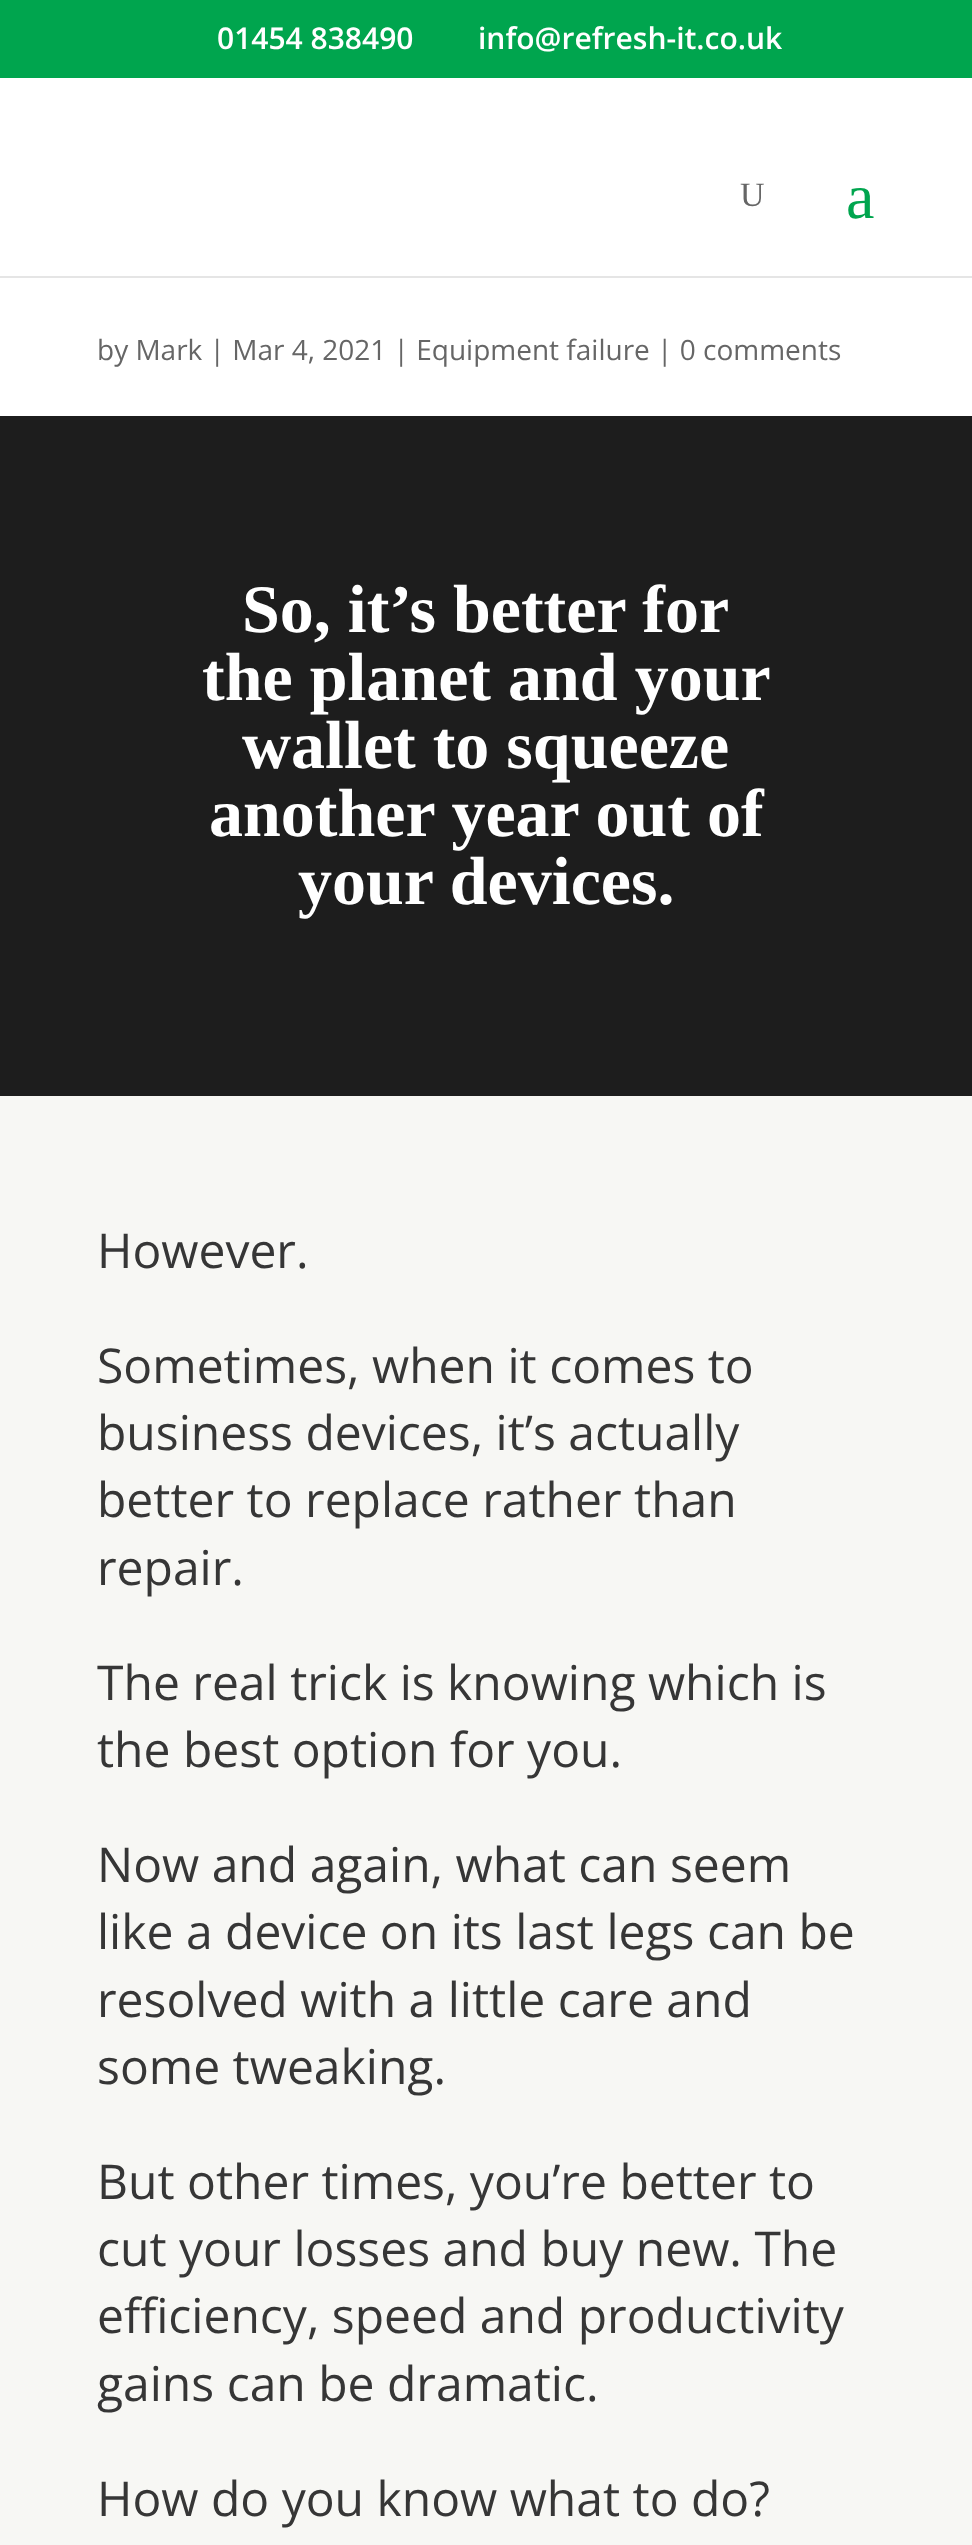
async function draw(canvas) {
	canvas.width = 972;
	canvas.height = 2545;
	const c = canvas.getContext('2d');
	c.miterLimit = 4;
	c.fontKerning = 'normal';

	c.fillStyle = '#fff';
	c.fillRect(0, 0, 972, 2545);
	c.fillStyle = '#00a54e';
	c.fillRect(0, 0, 972, 78);
	c.font = '600 30px Open Sans';
	c.fillStyle = '#fff';
	c.fillText('01454 838490', 217, 49);
	c.fillText('info@refresh-it.co.uk', 478, 49);
	c.fillStyle = '#0000001a';
	c.fillRect(0, 276, 972, 2);
	c.font = '34px Liberation Serif';
	c.fillStyle = '#666';
	c.fillText('U', 740, 206);
	c.font = '64px Liberation Serif';
	c.fillStyle = '#00a54e';
	c.fillText('a', 846, 218);
	c.font = '28px Open Sans';
	c.fillStyle = '#666';
	c.fillText('by Mark | Mar 4, 2021 | Equipment failure | 0 comments', 97, 360);
	c.fillStyle = '#1d1d1d';
	c.fillRect(0, 416, 972, 680);
	c.font = 'bold 68px Liberation Serif';
	c.fillStyle = '#fff';
	for (const [text, x, y] of [
		['So, it’s better for', 242, 632],
		['the planet and your', 202, 700],
		['wallet to squeeze', 242, 768],
		['another year out of', 209, 836],
		['your devices.', 298, 904],
	]) {
		c.fillText(text, x, y);
	}
	c.fillStyle = '#f7f7f4';
	c.fillRect(0, 1096, 972, 1449);
	c.font = '48px Open Sans';
	c.fillStyle = '#363636';
	for (const [text, x, y] of [
		['However.', 97, 1268],
		['Sometimes, when it comes to', 97, 1383],
		['business devices, it’s actually', 97, 1450],
		['better to replace rather than', 97, 1517],
		['repair.', 97, 1585],
		['The real trick is knowing which is', 97, 1700],
		['the best option for you.', 97, 1767],
		['Now and again, what can seem', 97, 1882],
		['like a device on its last legs can be', 97, 1949],
		['resolved with a little care and', 97, 2017],
		['some tweaking.', 97, 2084],
		['But other times, you’re better to', 97, 2199],
		['cut your losses and buy new. The', 97, 2266],
		['efficiency, speed and productivity', 97, 2333],
		['gains can be dramatic.', 97, 2401],
		['How do you know what to do?', 97, 2516],
	]) {
		c.fillText(text, x, y);
	}
}

draw(document.querySelector('canvas'));
